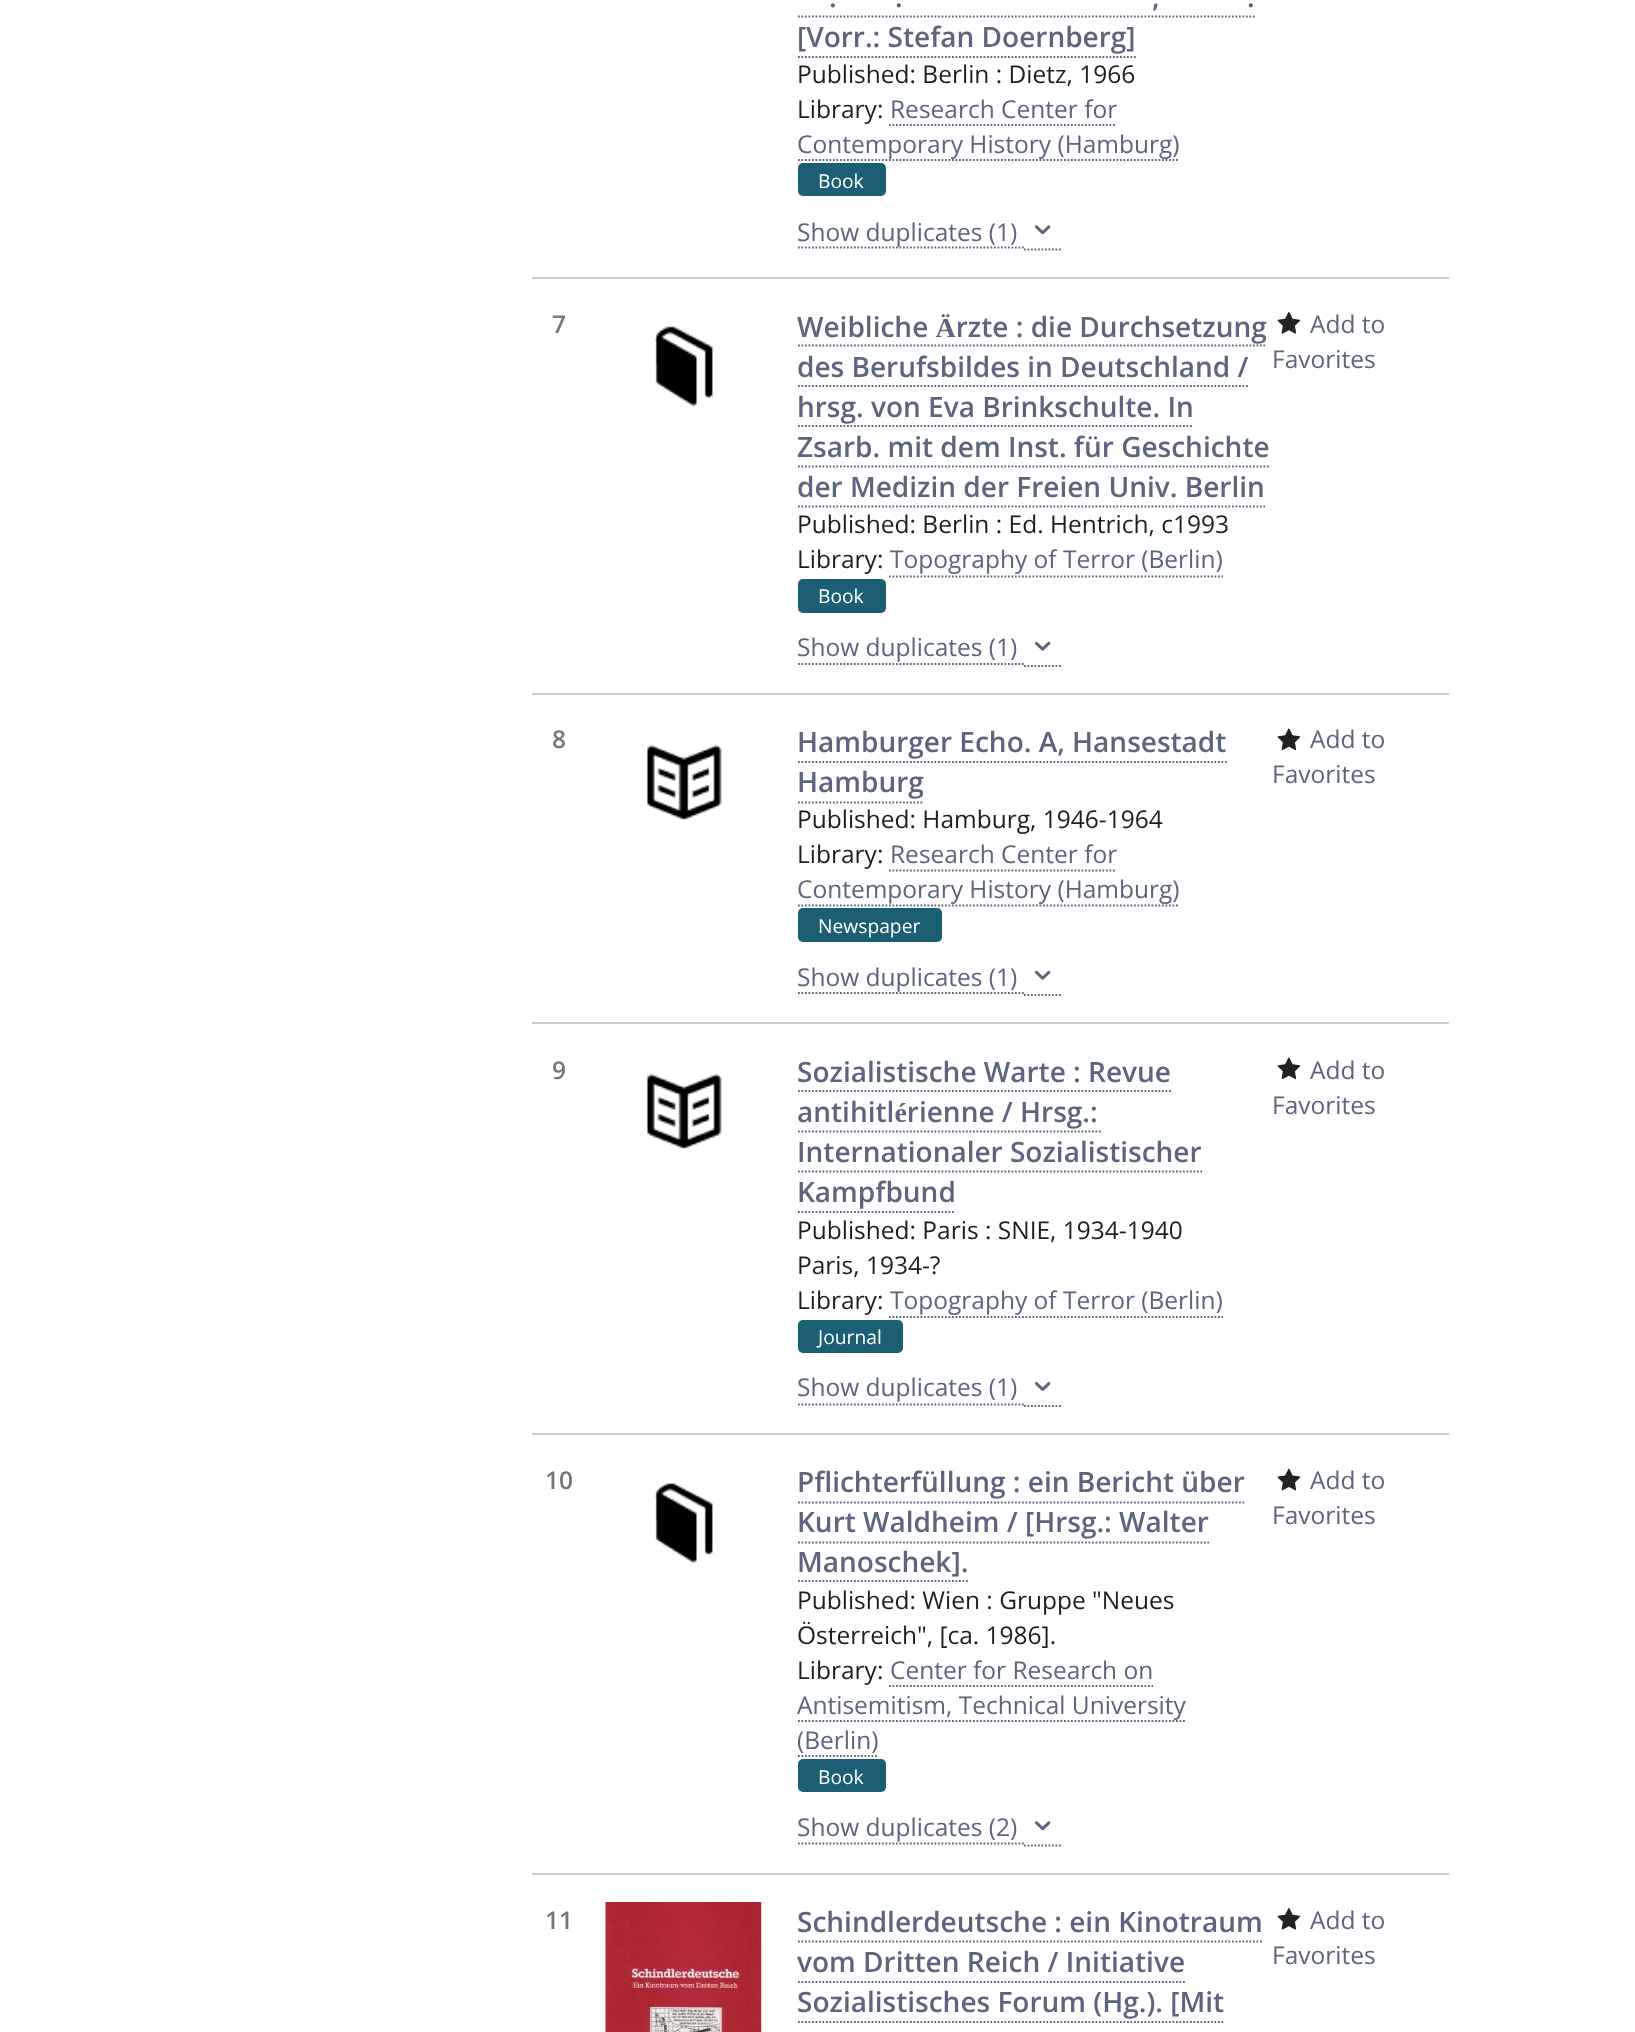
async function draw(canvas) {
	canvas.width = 1635;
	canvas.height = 2032;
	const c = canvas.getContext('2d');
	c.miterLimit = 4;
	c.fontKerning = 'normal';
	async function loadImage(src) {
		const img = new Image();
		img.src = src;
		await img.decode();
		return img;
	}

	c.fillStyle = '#fff';
	c.fillRect(0, 0, 1635, 2032);
	c.fillStyle = '#ccc';
	c.fillRect(532, 277, 917, 2);
	c.font = '600 28px Open Sans';
	c.fillStyle = '#5c647e';
	for (const [text, x, y] of [
		['.', 829, 7],
		['.', 895, 7],
		[',', 1152, 7],
	]) {
		c.fillText(text, x, y);
	}
	c.beginPath();
	c.moveTo(798, 16.5);
	c.lineTo(1255, 16.5);
	c.strokeStyle = '#5c647e';
	c.lineWidth = 1.8;
	c.setLineDash([1.75, 1.75]);
	c.stroke();
	c.fillText('.', 1247, 7);
	c.fillText('[Vorr.: Stefan Doernberg]', 797, 47);
	c.beginPath();
	c.moveTo(798, 57);
	c.lineTo(1136, 57);
	c.stroke();
	c.font = '24.5px Open Sans';
	c.fillStyle = '#1e1e1e';
	c.fillText('Published: Berlin : Dietz, 1966', 797, 83);
	c.fillText('Library:', 797, 118);
	c.fillStyle = '#5c647e';
	c.fillText('Research Center for', 890, 118);
	c.beginPath();
	c.moveTo(889, 125);
	c.lineTo(1116.5, 125);
	c.stroke();
	c.fillText('Contemporary History (Hamburg)', 797, 153);
	c.beginPath();
	c.moveTo(798, 160);
	c.lineTo(1179.5, 160);
	c.stroke();
	c.fillStyle = '#1c5f74';
	c.beginPath();
	c.roundRect(798, 163, 88, 33, 5);
	c.fill();
	c.font = '19.25px Open Sans';
	c.fillStyle = '#fff';
	c.fillText('Book', 818, 188);
	c.beginPath();
	c.moveTo(798, 247.5);
	c.lineTo(1024, 247.5);
	c.stroke();
	c.beginPath();
	c.moveTo(1024, 249.5);
	c.lineTo(1062, 249.5);
	c.stroke();
	c.font = '24.5px Open Sans';
	c.fillStyle = '#5c647e';
	c.fillText('Show duplicates (1)', 797, 241);
	c.drawImage(await loadImage('img1.png'), 1035, 225, 16, 10);
	c.fillStyle = '#ccc';
	c.fillRect(532, 693, 917, 2);
	c.font = '600 24.5px Open Sans';
	c.fillStyle = '#777';
	c.fillText('7', 552, 333);
	c.drawImage(await loadImage('img2.png'), 654, 326, 59, 81);
	c.font = '600 28px Open Sans';
	c.fillStyle = '#5c647e';
	c.fillText('Weibliche Ärzte : die Durchsetzung', 797, 337);
	c.beginPath();
	c.moveTo(798, 345.5);
	c.lineTo(1265, 345.5);
	c.stroke();
	c.fillText('des Berufsbildes in Deutschland /', 797, 377);
	c.beginPath();
	c.moveTo(798, 386);
	c.lineTo(1248, 386);
	c.stroke();
	c.fillText('hrsg. von Eva Brinkschulte. In', 797, 417);
	c.beginPath();
	c.moveTo(798, 426);
	c.lineTo(1193.5, 426);
	c.stroke();
	c.fillText('Zsarb. mit dem Inst. für Geschichte', 797, 457);
	c.beginPath();
	c.moveTo(798, 466.5);
	c.lineTo(1270.5, 466.5);
	c.stroke();
	c.fillText('der Medizin der Freien Univ. Berlin', 797, 497);
	c.beginPath();
	c.moveTo(798, 506.5);
	c.lineTo(1265, 506.5);
	c.stroke();
	c.font = '24.5px Open Sans';
	c.fillStyle = '#1e1e1e';
	c.fillText('Published: Berlin : Ed. Hentrich, c1993', 797, 533);
	c.fillText('Library:', 797, 568);
	c.fillStyle = '#5c647e';
	c.fillText('Topography of Terror (Berlin)', 890, 568);
	c.beginPath();
	c.moveTo(889, 576.5);
	c.lineTo(1223, 576.5);
	c.stroke();
	c.fillStyle = '#1c5f74';
	c.beginPath();
	c.roundRect(798, 579, 88, 34, 5);
	c.fill();
	c.font = '19.25px Open Sans';
	c.fillStyle = '#fff';
	c.fillText('Book', 818, 603);
	c.beginPath();
	c.moveTo(798, 664);
	c.lineTo(1024, 664);
	c.stroke();
	c.beginPath();
	c.moveTo(1024, 666);
	c.lineTo(1062, 666);
	c.stroke();
	c.font = '24.5px Open Sans';
	c.fillStyle = '#5c647e';
	c.fillText('Show duplicates (1)', 797, 656);
	c.drawImage(await loadImage('img3.png'), 1035, 641, 16, 10);
	c.drawImage(await loadImage('img4.png'), 1277, 312, 24, 22);
	c.fillText('Add to', 1310, 333);
	c.fillText('Favorites', 1272, 368);
	c.fillStyle = '#ccc';
	c.fillRect(532, 1022, 917, 2);
	c.font = '600 24.5px Open Sans';
	c.fillStyle = '#777';
	c.fillText('8', 552, 748);
	c.drawImage(await loadImage('img5.png'), 647, 744, 75, 76);
	c.font = '600 28px Open Sans';
	c.fillStyle = '#5c647e';
	c.fillText('Hamburger Echo. A, Hansestadt', 797, 752);
	c.beginPath();
	c.moveTo(798, 762);
	c.lineTo(1227, 762);
	c.stroke();
	c.fillText('Hamburg', 797, 792);
	c.beginPath();
	c.moveTo(798, 802.5);
	c.lineTo(924, 802.5);
	c.stroke();
	c.font = '24.5px Open Sans';
	c.fillStyle = '#1e1e1e';
	c.fillText('Published: Hamburg, 1946-1964', 797, 828);
	c.fillText('Library:', 797, 863);
	c.fillStyle = '#5c647e';
	c.fillText('Research Center for', 890, 863);
	c.beginPath();
	c.moveTo(889, 870.5);
	c.lineTo(1116.5, 870.5);
	c.stroke();
	c.fillText('Contemporary History (Hamburg)', 797, 898);
	c.beginPath();
	c.moveTo(798, 905.5);
	c.lineTo(1179.5, 905.5);
	c.stroke();
	c.fillStyle = '#1c5f74';
	c.beginPath();
	c.roundRect(798, 908, 144, 34, 5);
	c.fill();
	c.font = '19.25px Open Sans';
	c.fillStyle = '#fff';
	c.fillText('Newspaper', 818, 933);
	c.beginPath();
	c.moveTo(798, 993);
	c.lineTo(1024, 993);
	c.stroke();
	c.beginPath();
	c.moveTo(1024, 995);
	c.lineTo(1062, 995);
	c.stroke();
	c.font = '24.5px Open Sans';
	c.fillStyle = '#5c647e';
	c.fillText('Show duplicates (1)', 797, 986);
	c.drawImage(await loadImage('img3.png'), 1035, 970, 16, 10);
	c.drawImage(await loadImage('img6.png'), 1277, 728, 24, 23);
	c.fillText('Add to', 1310, 748);
	c.fillText('Favorites', 1272, 783);
	c.fillStyle = '#ccc';
	c.fillRect(532, 1433, 917, 2);
	c.font = '600 24.5px Open Sans';
	c.fillStyle = '#777';
	c.fillText('9', 552, 1079);
	c.drawImage(await loadImage('img5.png'), 647, 1073, 75, 76);
	c.font = '600 28px Open Sans';
	c.fillStyle = '#5c647e';
	c.fillText('Sozialistische Warte : Revue', 797, 1082);
	c.beginPath();
	c.moveTo(798, 1091);
	c.lineTo(1171, 1091);
	c.stroke();
	c.fillText('antihitlérienne / Hrsg.:', 797, 1122);
	c.beginPath();
	c.moveTo(798, 1131.5);
	c.lineTo(1101, 1131.5);
	c.stroke();
	c.fillText('Internationaler Sozialistischer', 797, 1162);
	c.beginPath();
	c.moveTo(798, 1171.5);
	c.lineTo(1202, 1171.5);
	c.stroke();
	c.fillText('Kampfbund', 797, 1202);
	c.beginPath();
	c.moveTo(798, 1212);
	c.lineTo(955.5, 1212);
	c.stroke();
	c.font = '24.5px Open Sans';
	c.fillStyle = '#1e1e1e';
	for (const [text, x, y] of [
		['Published: Paris : SNIE, 1934-1940', 797, 1239],
		['Paris, 1934-?', 797, 1274],
		['Library:', 797, 1309],
	]) {
		c.fillText(text, x, y);
	}
	c.fillStyle = '#5c647e';
	c.fillText('Topography of Terror (Berlin)', 890, 1309);
	c.beginPath();
	c.moveTo(889, 1317);
	c.lineTo(1223, 1317);
	c.stroke();
	c.fillStyle = '#1c5f74';
	c.beginPath();
	c.roundRect(798, 1320, 105, 33, 5);
	c.fill();
	c.font = '19.25px Open Sans';
	c.fillStyle = '#fff';
	c.fillText('Journal', 818, 1344);
	c.beginPath();
	c.moveTo(798, 1404.5);
	c.lineTo(1024, 1404.5);
	c.stroke();
	c.beginPath();
	c.moveTo(1024, 1406);
	c.lineTo(1062, 1406);
	c.stroke();
	c.font = '24.5px Open Sans';
	c.fillStyle = '#5c647e';
	c.fillText('Show duplicates (1)', 797, 1396);
	c.drawImage(await loadImage('img7.png'), 1035, 1382, 16, 9);
	c.drawImage(await loadImage('img6.png'), 1277, 1057, 24, 23);
	c.fillText('Add to', 1310, 1079);
	c.fillText('Favorites', 1272, 1114);
	c.fillStyle = '#ccc';
	c.fillRect(532, 1873, 917, 2);
	c.font = '600 24.5px Open Sans';
	c.fillStyle = '#777';
	c.fillText('10', 545, 1489);
	c.drawImage(await loadImage('img8.png'), 654, 1483, 59, 80);
	c.font = '600 28px Open Sans';
	c.fillStyle = '#5c647e';
	c.fillText('Pflichterfüllung : ein Bericht über', 797, 1492);
	c.beginPath();
	c.moveTo(798, 1502.5);
	c.lineTo(1244, 1502.5);
	c.stroke();
	c.fillText('Kurt Waldheim / [Hrsg.: Walter', 797, 1532);
	c.beginPath();
	c.moveTo(798, 1542.5);
	c.lineTo(1209, 1542.5);
	c.stroke();
	c.fillText('Manoschek].', 797, 1572);
	c.beginPath();
	c.moveTo(798, 1581);
	c.lineTo(968, 1581);
	c.stroke();
	c.font = '24.5px Open Sans';
	c.fillStyle = '#1e1e1e';
	for (const [text, x, y] of [
		['Published: Wien : Gruppe "Neues', 797, 1609],
		['Österreich", [ca. 1986].', 797, 1644],
		['Library:', 797, 1679],
	]) {
		c.fillText(text, x, y);
	}
	c.fillStyle = '#5c647e';
	c.fillText('Center for Research on', 890, 1679);
	c.beginPath();
	c.moveTo(889, 1686);
	c.lineTo(1153, 1686);
	c.stroke();
	c.fillText('Antisemitism, Technical University', 797, 1714);
	c.beginPath();
	c.moveTo(798, 1721);
	c.lineTo(1186.5, 1721);
	c.stroke();
	c.fillText('(Berlin)', 797, 1749);
	c.beginPath();
	c.moveTo(798, 1756);
	c.lineTo(878.5, 1756);
	c.stroke();
	c.fillStyle = '#1c5f74';
	c.beginPath();
	c.roundRect(798, 1759, 88, 33, 5);
	c.fill();
	c.font = '19.25px Open Sans';
	c.fillStyle = '#fff';
	c.fillText('Book', 818, 1784);
	c.beginPath();
	c.moveTo(798, 1843.5);
	c.lineTo(1024, 1843.5);
	c.stroke();
	c.beginPath();
	c.moveTo(1024, 1845.5);
	c.lineTo(1062, 1845.5);
	c.stroke();
	c.font = '24.5px Open Sans';
	c.fillStyle = '#5c647e';
	c.fillText('Show duplicates (2)', 797, 1836);
	c.drawImage(await loadImage('img1.png'), 1035, 1821, 16, 10);
	c.drawImage(await loadImage('img9.png'), 1277, 1468, 24, 23);
	c.fillText('Add to', 1310, 1489);
	c.fillText('Favorites', 1272, 1524);
	c.font = '600 24.5px Open Sans';
	c.fillStyle = '#777';
	c.fillText('11', 545, 1929);
	c.drawImage(await loadImage('img10.png'), 605, 1902, 157, 130);
	c.font = '600 28px Open Sans';
	c.fillStyle = '#5c647e';
	c.fillText('Schindlerdeutsche : ein Kinotraum', 797, 1932);
	c.beginPath();
	c.moveTo(798, 1941.5);
	c.lineTo(1263.5, 1941.5);
	c.stroke();
	c.fillText('vom Dritten Reich / Initiative', 797, 1972);
	c.beginPath();
	c.moveTo(798, 1982);
	c.lineTo(1185, 1982);
	c.stroke();
	c.fillText('Sozialistisches Forum (Hg.). [Mit', 797, 2012);
	c.beginPath();
	c.moveTo(798, 2022);
	c.lineTo(1225, 2022);
	c.stroke();
	c.drawImage(await loadImage('img4.png'), 1277, 1908, 24, 22);
	c.font = '24.5px Open Sans';
	c.fillText('Add to', 1310, 1929);
	c.fillText('Favorites', 1272, 1964);
}

draw(document.querySelector('canvas'));
